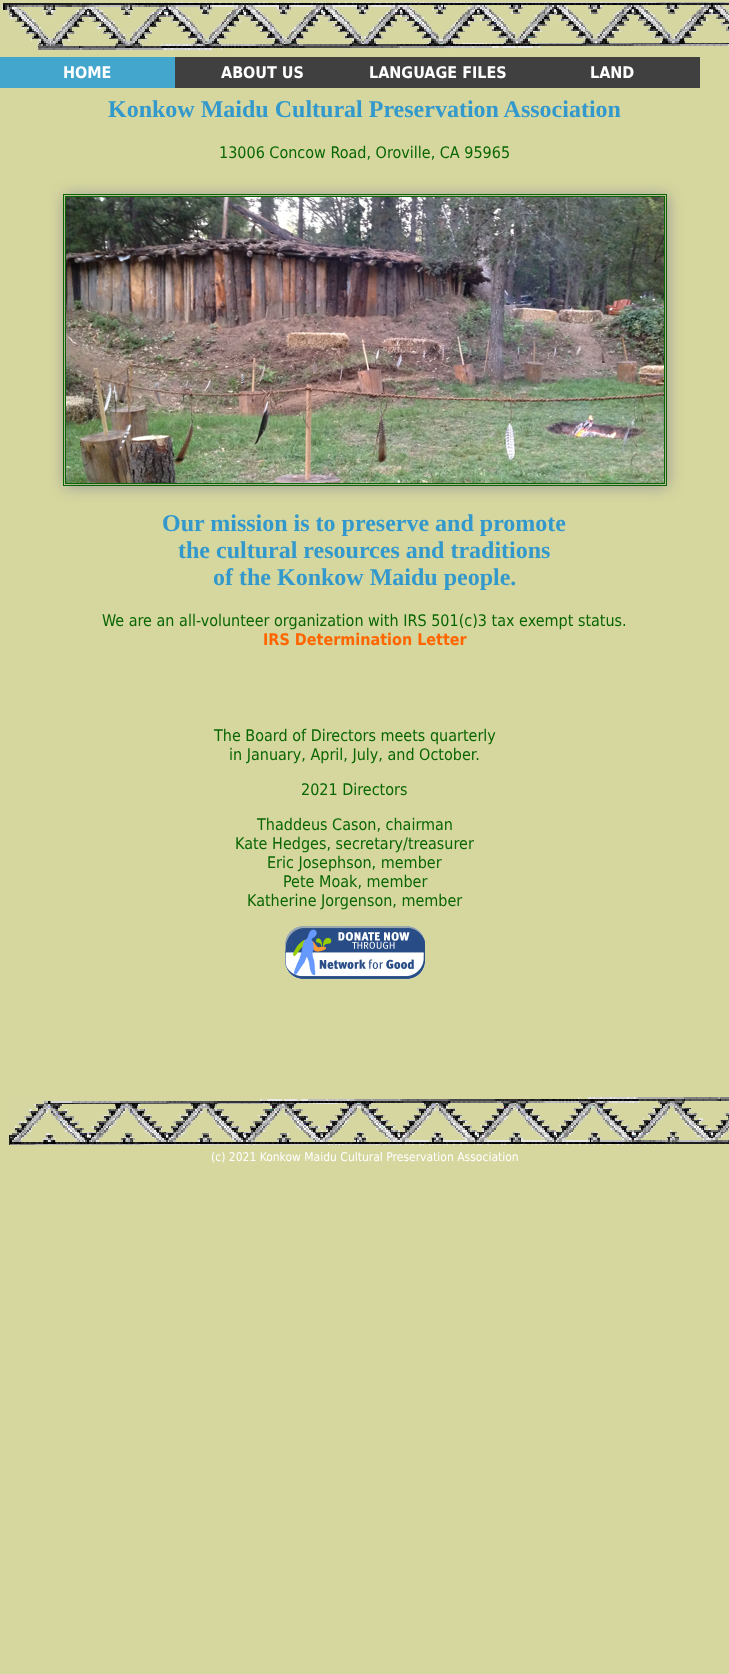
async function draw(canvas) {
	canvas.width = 729;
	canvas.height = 1674;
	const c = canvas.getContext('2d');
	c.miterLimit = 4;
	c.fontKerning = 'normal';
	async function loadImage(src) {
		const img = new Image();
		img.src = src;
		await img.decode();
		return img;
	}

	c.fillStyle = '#d6d79e';
	c.fillRect(0, 0, 729, 1674);
	c.drawImage(await loadImage('img1.png'), 0, 0, 729, 52);
	c.fillStyle = '#43a6cd';
	c.fillRect(0, 57, 175, 31);
	c.font = 'bold 16px DejaVu Sans';
	c.fillStyle = '#fff';
	c.fillText('HOME', 63, 78);
	c.fillStyle = '#404040';
	c.fillRect(175, 57, 525, 31);
	c.fillStyle = '#fff';
	for (const [text, x, y] of [
		['ABOUT US', 221, 78],
		['LANGUAGE FILES', 369, 78],
		['LAND', 590, 78],
	]) {
		c.fillText(text, x, y);
	}
	c.font = 'bold 24px Liberation Serif';
	c.fillStyle = '#39c';
	c.fillText('Konkow Maidu Cultural Preservation Association', 108, 117);
	c.font = '16px DejaVu Sans';
	c.fillStyle = '#096603';
	c.fillText('13006 Concow Road, Oroville, CA 95965', 219, 158);
	c.fillStyle = '#999';
	c.filter = 'blur(7.5px)';
	c.beginPath();
	c.rect(64, 195, 604, 292);
	c.fill();
	c.filter = 'none';
	c.strokeStyle = '#096603';
	c.strokeRect(63.5, 194.5, 603, 291);
	c.strokeRect(65.5, 196.5, 599, 287);
	c.drawImage(await loadImage('img2.png'), 66, 197, 598, 286);
	c.font = 'bold 24px Liberation Serif';
	c.fillStyle = '#39c';
	for (const [text, x, y] of [
		['Our mission is to preserve and promote', 162, 531],
		['the cultural resources and traditions', 178, 558],
		['of the Konkow Maidu people.', 213, 585],
	]) {
		c.fillText(text, x, y);
	}
	c.font = '16px DejaVu Sans';
	c.fillStyle = '#096603';
	c.fillText('We are an all-volunteer organization with IRS 501(c)3 tax exempt status.', 102, 626);
	c.font = 'bold 16px DejaVu Sans';
	c.fillStyle = '#f60';
	c.fillText('IRS Determination Letter', 263, 645);
	c.font = '16px DejaVu Sans';
	c.fillStyle = '#096603';
	for (const [text, x, y] of [
		['The Board of Directors meets quarterly', 214, 741],
		['in January, April, July, and October.', 229, 760],
		['2021 Directors', 301, 795],
		['Thaddeus Cason, chairman', 257, 830],
		['Kate Hedges, secretary/treasurer', 235, 849],
		['Eric Josephson, member', 267, 868],
		['Pete Moak, member', 283, 887],
		['Katherine Jorgenson, member', 247, 906],
	]) {
		c.fillText(text, x, y);
	}
	c.drawImage(await loadImage('img3.png'), 285, 926, 140, 53);
	c.drawImage(await loadImage('img4.png'), 7, 1097, 722, 48);
	c.font = '12px DejaVu Sans';
	c.fillStyle = '#fff';
	c.fillText('(c) 2021 Konkow Maidu Cultural Preservation Association', 211, 1161);
}

draw(document.querySelector('canvas'));
